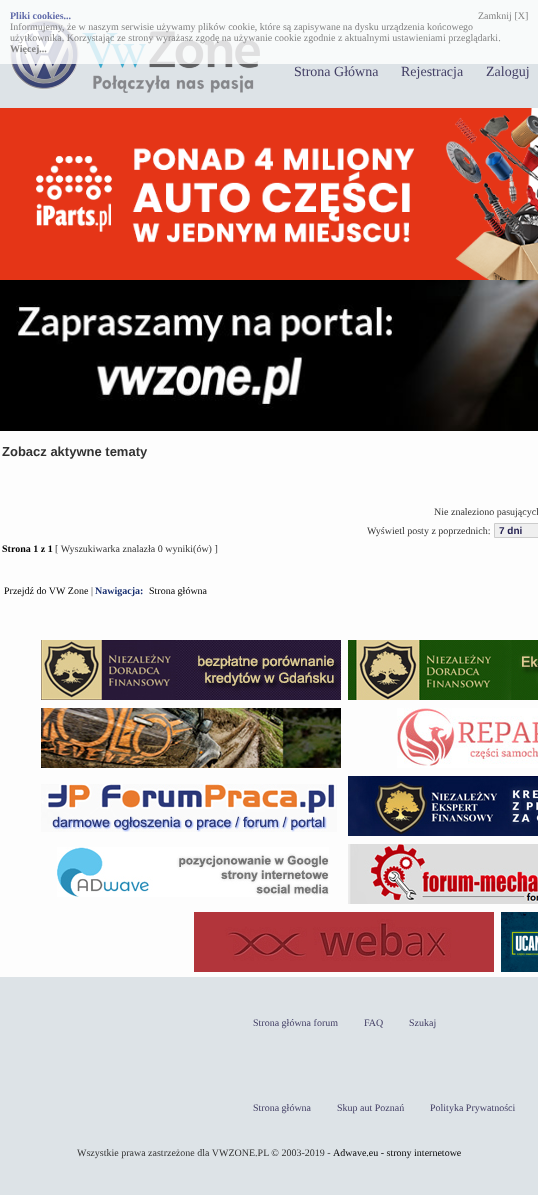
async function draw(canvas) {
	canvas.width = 538;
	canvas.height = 1195;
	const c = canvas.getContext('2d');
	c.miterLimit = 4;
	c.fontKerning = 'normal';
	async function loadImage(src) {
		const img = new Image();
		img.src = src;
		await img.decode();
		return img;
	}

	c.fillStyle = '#dde3e7';
	c.fillRect(0, 0, 538, 1195);
	c.drawImage(await loadImage('img1.png'), 10, 20, 250, 73);
	c.fillStyle = '#ffffffcc';
	c.fillRect(0, 0, 538, 64);
	c.font = 'bold 10px Liberation Serif';
	c.fillStyle = '#626cab';
	c.fillText('Pliki cookies...', 10, 19);
	c.font = '10px Liberation Serif';
	c.fillStyle = '#838383';
	c.fillText('Informujemy, że w naszym serwisie używamy plików cookie, które są zapisywane na dysku urządzenia końcowego', 10, 30);
	c.fillText('użytkownika. Korzystając ze strony wyrażasz zgodę na używanie cookie zgodnie z aktualnymi ustawieniami przeglądarki.', 10, 41);
	c.font = 'bold 10px Liberation Serif';
	c.fillText('Więcej...', 10, 52);
	c.font = '10px Liberation Serif';
	c.fillText('Zamknij [X]', 478, 19);
	c.font = '14px Liberation Serif';
	c.fillStyle = '#444066';
	for (const [text, x, y] of [
		['Strona Główna', 294, 76],
		['Rejestracja', 401, 76],
		['Zaloguj', 486, 76],
	]) {
		c.fillText(text, x, y);
	}
	c.drawImage(await loadImage('img2.png'), 0, 108, 538, 172);
	c.drawImage(await loadImage('img3.png'), 0, 280, 538, 151);
	c.fillStyle = '#fdfdfd';
	c.fillRect(0, 431, 538, 546);
	c.font = 'bold 13px Liberation Sans';
	c.fillStyle = '#333';
	c.fillText('Zobacz aktywne tematy', 2, 456);
	c.font = '10px Liberation Serif';
	c.fillText('Nie znaleziono pasujących', 434, 515);
	c.fillText('Wyświetl posty z poprzednich:', 367, 534);
	c.fillStyle = '#efefef';
	c.beginPath();
	c.rect(494.5, 523.5, 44, 14);
	c.fill();
	c.strokeStyle = '#ccc';
	c.stroke();
	c.font = 'bold 10px Liberation Sans';
	c.fillStyle = '#221e4f';
	c.fillText('7 dni', 499, 534);
	c.font = 'bold 10px Liberation Serif';
	c.fillStyle = '#000';
	c.fillText('Strona 1 z 1', 2, 552);
	c.font = '10px Liberation Serif';
	c.fillStyle = '#333';
	c.fillText('[ Wyszukiwarka znalazła 0 wyniki(ów) ]', 55, 552);
	c.fillStyle = '#000';
	c.fillText('Przejdź do VW Zone', 4, 594);
	c.fillStyle = '#333';
	c.fillText('|', 91, 594);
	c.font = 'bold 10px Liberation Serif';
	c.fillStyle = '#193071';
	c.fillText('Nawigacja:', 95, 594);
	c.font = '10px Liberation Serif';
	c.fillStyle = '#000';
	c.fillText('Strona główna', 149, 594);
	c.drawImage(await loadImage('img4.png'), 41, 640, 300, 60);
	c.drawImage(await loadImage('img5.png'), 348, 640, 190, 60);
	c.drawImage(await loadImage('img6.png'), 41, 708, 300, 60);
	c.drawImage(await loadImage('img7.png'), 397, 708, 141, 60);
	c.drawImage(await loadImage('img8.png'), 41, 784, 296, 48);
	c.drawImage(await loadImage('img9.png'), 348, 776, 190, 60);
	c.drawImage(await loadImage('img10.png'), 57, 847, 272, 50);
	c.drawImage(await loadImage('img11.png'), 348, 844, 190, 60);
	c.drawImage(await loadImage('img12.png'), 194, 912, 300, 60);
	c.drawImage(await loadImage('img13.png'), 501, 912, 37, 60);
	c.fillStyle = '#444066';
	for (const [text, x, y] of [
		['Strona główna forum', 253, 1026],
		['FAQ', 364, 1026],
		['Szukaj', 409, 1026],
		['Strona główna', 253, 1111],
		['Skup aut Poznań', 337, 1111],
		['Polityka Prywatności', 430, 1111],
	]) {
		c.fillText(text, x, y);
	}
	c.fillStyle = '#333';
	c.fillText('Wszystkie prawa zastrzeżone dla VWZONE.PL © 2003-2019 -', 77, 1156);
	c.fillStyle = '#000';
	c.fillText('Adwave.eu - strony internetowe', 333, 1156);
}

draw(document.querySelector('canvas'));
